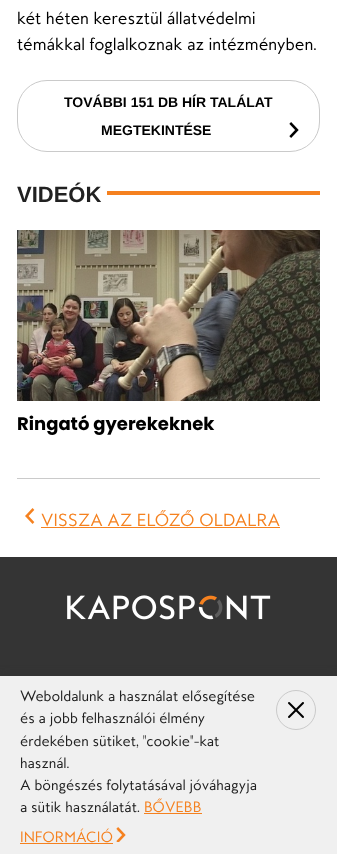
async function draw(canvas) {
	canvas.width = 337;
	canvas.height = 854;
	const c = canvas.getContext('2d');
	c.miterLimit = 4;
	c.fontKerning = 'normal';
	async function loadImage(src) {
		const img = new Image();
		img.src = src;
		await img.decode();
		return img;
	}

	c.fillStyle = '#fff';
	c.fillRect(0, 0, 337, 854);
	c.font = '16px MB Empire';
	c.fillStyle = '#000';
	c.fillText('két héten keresztül állatvédelmi', 17, 24);
	c.fillText('témákkal foglalkoznak az intézményben.', 17, 50);
	c.beginPath();
	c.roundRect(17.5, 80.5, 302, 71, 29.5);
	c.strokeStyle = '#cacaca';
	c.stroke();
	c.font = 'bold 14px Liberation Sans';
	c.fillText('TOVÁBBI 151 DB HÍR TALÁLAT', 64, 107);
	c.fillText('MEGTEKINTÉSE', 101, 135);
	c.drawImage(await loadImage('img1.png'), 289, 122, 10, 16);
	c.font = 'bold 22px Liberation Sans';
	c.fillStyle = '#212121';
	c.fillText('VIDEÓK', 17, 202);
	c.fillStyle = '#f5811f';
	c.fillRect(107, 191, 213, 4);
	c.drawImage(await loadImage('img2.png'), 17, 230, 303, 171);
	c.font = 'bold 18px Poppins';
	c.fillStyle = '#000';
	c.fillText('Ringató gyerekeknek', 17, 430);
	c.fillStyle = '#cacaca';
	c.fillRect(17, 478, 303, 1);
	c.drawImage(await loadImage('img3.png'), 25, 508, 10, 16);
	c.font = '16px MB Empire';
	c.fillStyle = '#f5811f';
	c.fillText('VISSZA AZ ELŐZŐ OLDALRA', 41, 526);
	c.fillRect(41, 527, 239, 1);
	c.fillStyle = '#343434';
	c.fillRect(0, 557, 337, 119);
	c.drawImage(await loadImage('img4.png'), 67, 595, 204, 25);
	c.fillStyle = '#323232bf';
	c.filter = 'blur(5px)';
	c.beginPath();
	c.rect(0, 676, 337, 178);
	c.fill();
	c.filter = 'none';
	c.fillStyle = '#f0f0f0';
	c.fillRect(0, 676, 337, 178);
	c.font = '13.6px MB Empire';
	c.fillStyle = '#212121';
	for (const [text, x, y] of [
		['Weboldalunk a használat elősegítése', 20, 701],
		['és a jobb felhasználói élmény', 20, 723],
		['érdekében sütiket, "cookie"-kat', 20, 746],
		['használ.', 20, 768],
		['A böngészés folytatásával jóváhagyja', 20, 790],
	]) {
		c.fillText(text, x, y);
	}
	c.fillStyle = '#f5811f';
	c.fillText('BŐVEBB', 144, 812);
	c.fillRect(144, 813, 58, 1);
	c.fillText('INFORMÁCIÓ', 20, 842);
	c.fillRect(20, 843, 93, 1);
	c.drawImage(await loadImage('img5.png'), 116, 827, 10, 15);
	c.fillStyle = '#212121';
	c.fillText('a sütik használatát.', 20, 812);
	c.beginPath();
	c.arc(296, 710, 19.5, 0, 2 * Math.PI);
	c.stroke();
	c.drawImage(await loadImage('img6.png'), 288, 702, 16, 16);
}

draw(document.querySelector('canvas'));
